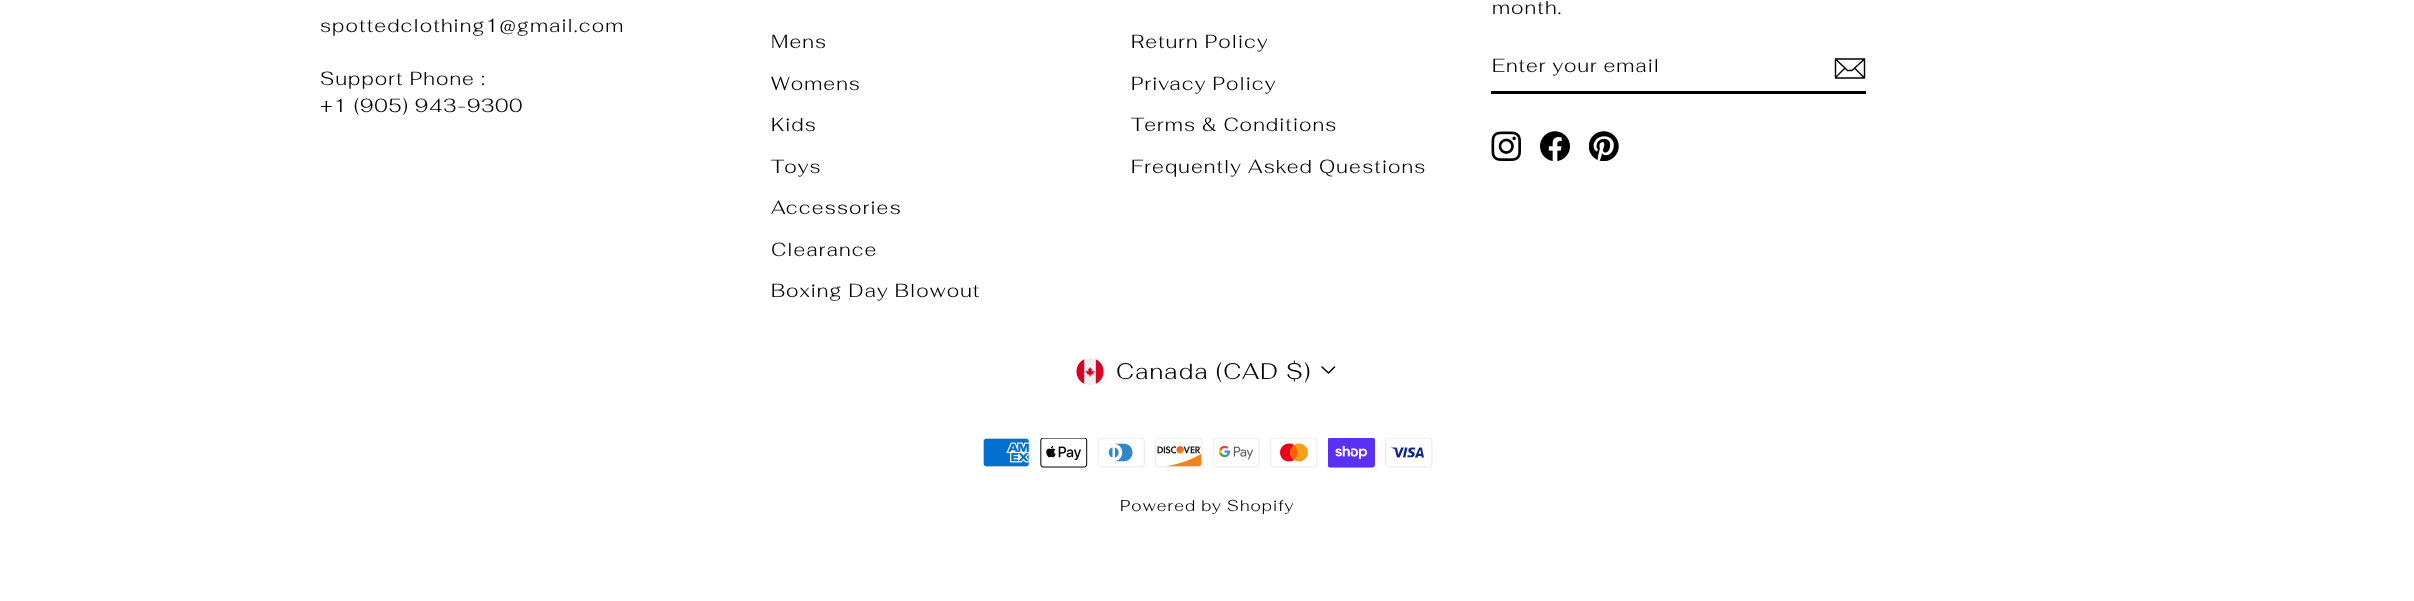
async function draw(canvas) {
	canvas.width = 2414;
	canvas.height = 601;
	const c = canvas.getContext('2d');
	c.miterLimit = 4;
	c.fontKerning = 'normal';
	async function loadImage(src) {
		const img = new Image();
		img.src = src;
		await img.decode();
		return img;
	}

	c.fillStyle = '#fff';
	c.fillRect(0, 0, 2414, 601);
	c.letterSpacing = '1.1px';
	c.font = '300 19.1px Fahkwang';
	c.fillStyle = '#000';
	for (const [text, x, y] of [
		['spottedclothing1@gmail.com', 320, 32],
		['Support Phone :', 320, 85],
		['+1 (905) 943-9300', 320, 112],
		['Mens', 771, 48],
		['Womens', 771, 90],
		['Kids', 771, 131],
		['Toys', 771, 173],
		['Accessories', 771, 214],
		['Clearance', 771, 256],
		['Boxing Day Blowout', 771, 297],
		['Return Policy', 1131, 48],
		['Privacy Policy', 1131, 90],
		['Terms & Conditions', 1131, 131],
		['Frequently Asked Questions', 1131, 173],
		['month.', 1492, 14],
	]) {
		c.fillText(text, x, y);
	}
	c.fillRect(1491, 91, 375, 3);
	c.letterSpacing = '1px';
	c.fillText('Enter your email', 1492, 72);
	c.beginPath();
	c.moveTo(1864.5, 78);
	c.lineTo(1835.5, 78);
	c.lineTo(1835.5, 59);
	c.lineTo(1864.5, 59);
	c.closePath();
	c.moveTo(1835.5, 59);
	c.lineTo(1847.5, 70.5);
	c.lineTo(1852, 70.5);
	c.lineTo(1864.5, 59);
	c.moveTo(1845, 68);
	c.lineTo(1835.5, 77.5);
	c.moveTo(1864, 77.5);
	c.lineTo(1854.5, 68);
	c.strokeStyle = '#000';
	c.lineWidth = 1.4;
	c.lineCap = 'round';
	c.lineJoin = 'round';
	c.stroke();
	c.drawImage(await loadImage('img1.png'), 1491, 131, 30, 30);
	c.drawImage(await loadImage('img2.png'), 1540, 131, 30, 30);
	c.drawImage(await loadImage('img3.png'), 1589, 131, 30, 30);
	c.drawImage(await loadImage('img4.png'), 1076, 358, 28, 27);
	c.letterSpacing = '1.1px';
	c.font = '300 22.5px Fahkwang';
	c.fillText('Canada (CAD $)', 1116, 379);
	c.beginPath();
	c.moveTo(1322, 367);
	c.lineTo(1328.5, 373);
	c.lineTo(1334.5, 367);
	c.lineWidth = 1.5;
	c.stroke();
	c.drawImage(await loadImage('img5.png'), 983, 438, 47, 30);
	c.drawImage(await loadImage('img6.png'), 1040, 438, 48, 30);
	c.drawImage(await loadImage('img7.png'), 1098, 438, 47, 30);
	c.drawImage(await loadImage('img8.png'), 1155, 438, 48, 30);
	c.drawImage(await loadImage('img9.png'), 1213, 438, 47, 30);
	c.drawImage(await loadImage('img10.png'), 1270, 438, 48, 30);
	c.drawImage(await loadImage('img11.png'), 1328, 438, 47, 30);
	c.drawImage(await loadImage('img12.png'), 1385, 438, 48, 30);
	c.font = '300 15.75px Fahkwang';
	c.fillText('Powered by Shopify', 1120, 511);
}

draw(document.querySelector('canvas'));
